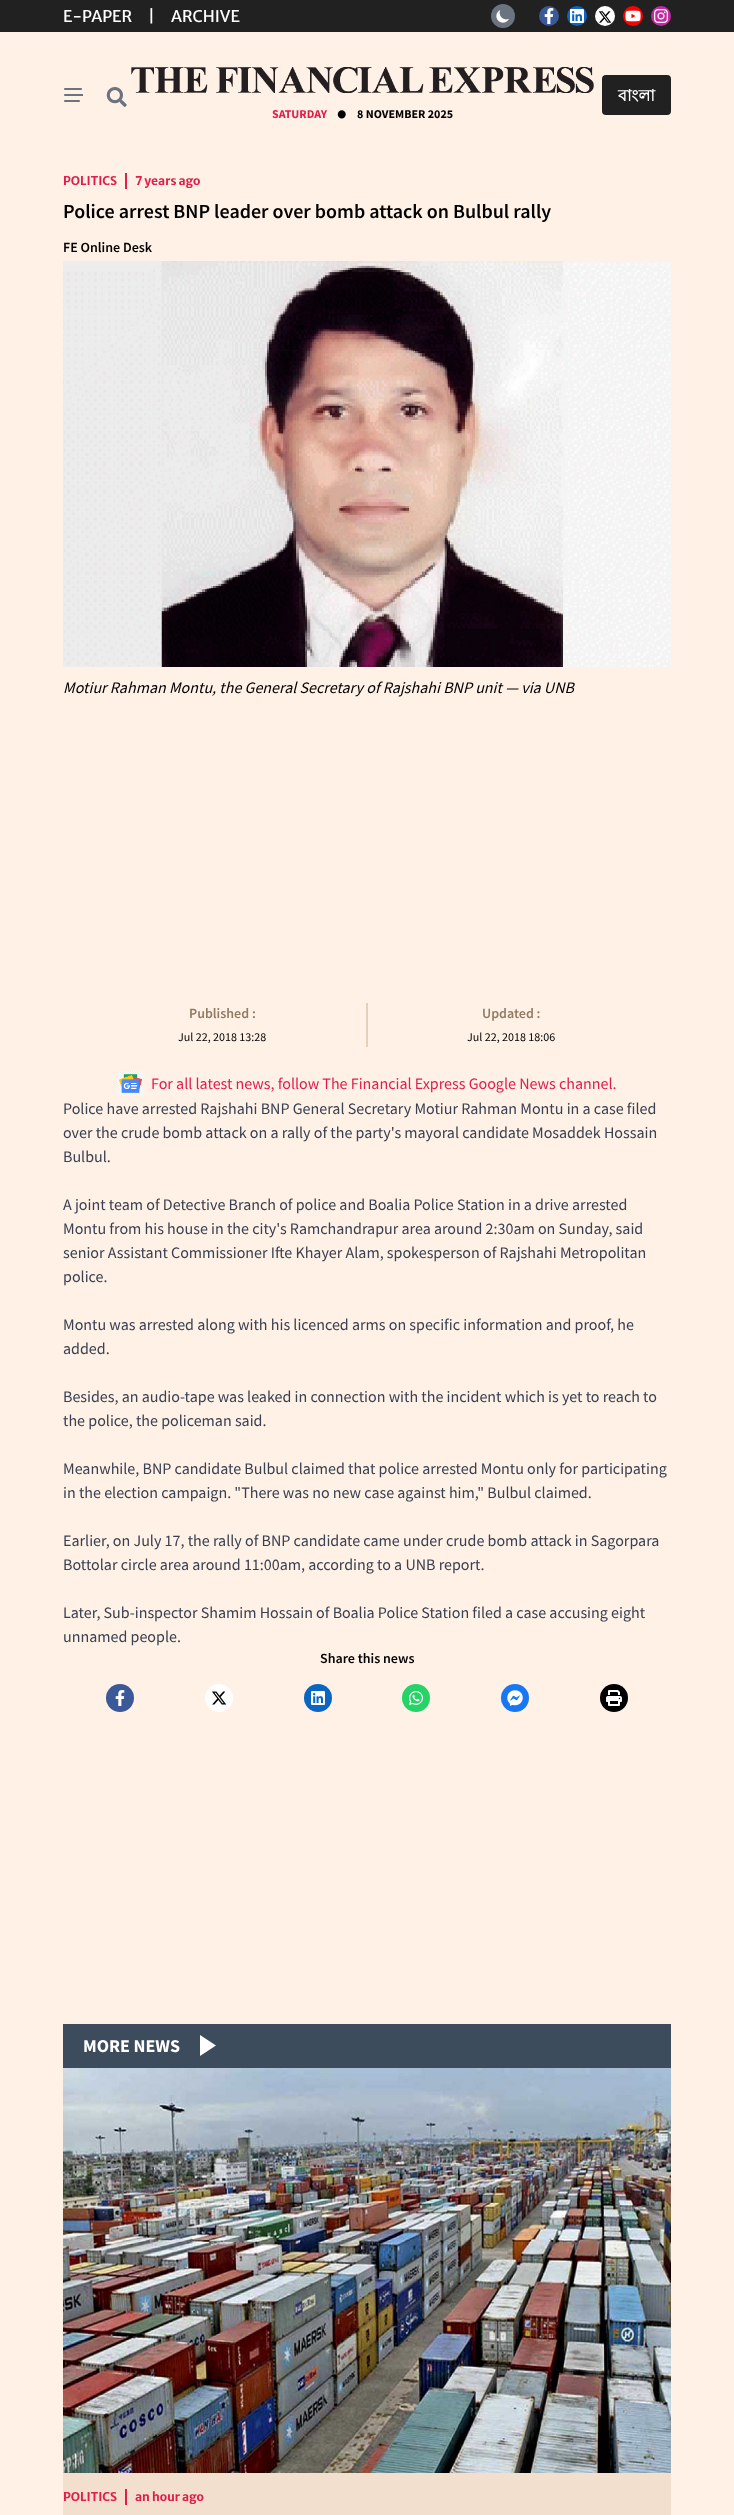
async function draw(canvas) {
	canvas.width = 734;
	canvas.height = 2515;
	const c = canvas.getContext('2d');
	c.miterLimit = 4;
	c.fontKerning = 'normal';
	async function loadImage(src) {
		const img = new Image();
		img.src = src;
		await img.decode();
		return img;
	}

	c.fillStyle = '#fff1e6';
	c.fillRect(0, 0, 734, 2515);
	c.fillStyle = '#212121';
	c.fillRect(0, 0, 734, 32);
	c.font = '16px Merriweather Sans';
	c.fillStyle = '#fff';
	for (const [text, x, y] of [
		['E-PAPER', 63, 22],
		['|', 148, 22],
		['ARCHIVE', 171, 22],
	]) {
		c.fillText(text, x, y);
	}
	c.fillStyle = '#6b7280';
	c.beginPath();
	c.arc(503, 16, 12, 0, 2 * Math.PI);
	c.fill();
	c.drawImage(await loadImage('img1.png'), 496, 10, 13, 13);
	c.fillStyle = '#3b5998';
	c.beginPath();
	c.arc(549, 16, 10, 0, 2 * Math.PI);
	c.fill();
	c.drawImage(await loadImage('img2.png'), 544, 8, 10, 16);
	c.fillStyle = '#0a66c2';
	c.beginPath();
	c.arc(577, 16, 10, 0, 2 * Math.PI);
	c.fill();
	c.drawImage(await loadImage('img3.png'), 570, 9, 14, 14);
	c.fillStyle = '#fff';
	c.beginPath();
	c.arc(605, 16, 10, 0, 2 * Math.PI);
	c.fill();
	c.drawImage(await loadImage('img4.png'), 598, 11, 14, 12);
	c.fillStyle = '#f00';
	c.beginPath();
	c.arc(633, 16, 10, 0, 2 * Math.PI);
	c.fill();
	c.drawImage(await loadImage('img5.png'), 625, 10, 16, 12);
	c.fillStyle = '#c32aa3';
	c.beginPath();
	c.arc(661, 16, 10, 0, 2 * Math.PI);
	c.fill();
	c.drawImage(await loadImage('img6.png'), 654, 9, 14, 14);
	c.drawImage(await loadImage('img7.png'), 64, 88, 19, 14);
	c.drawImage(await loadImage('img8.png'), 106, 87, 21, 20);
	c.fillStyle = '#212121';
	c.beginPath();
	c.roundRect(602, 75, 69, 40, 4);
	c.fill();
	c.font = 'bold 16px Lohit Bengali';
	c.fillStyle = '#fff';
	c.fillText('বাংলা', 618, 101);
	c.drawImage(await loadImage('img9.png'), 131, 67, 463, 26);
	c.font = 'bold 12px Source Sans Pro';
	c.fillStyle = '#e11d48';
	c.fillText('SATURDAY', 272, 118);
	c.font = 'bold 45px Source Sans Pro';
	c.fillStyle = '#000';
	c.fillText('.', 335, 118);
	c.font = 'bold 12px Source Sans Pro';
	c.fillText('8 NOVEMBER 2025', 357, 118);
	c.font = 'bold 12px Merriweather Sans';
	c.fillStyle = '#e11d48';
	c.fillText('POLITICS', 63, 185);
	c.fillRect(125, 173, 2, 16);
	c.fillText('7 years ago', 135, 185);
	c.font = '600 20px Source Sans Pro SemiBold';
	c.fillStyle = '#000';
	c.fillText('Police arrest BNP leader over bomb attack on Bulbul rally', 63, 218);
	c.font = '600 14px Source Sans Pro SemiBold';
	c.fillText('FE Online Desk', 63, 252);
	c.drawImage(await loadImage('img10.png'), 63, 261, 608, 406);
	c.font = 'italic 16px Source Sans Pro';
	c.fillText('Motiur Rahman Montu, the General Secretary of Rajshahi BNP unit — via UNB', 63, 693);
	c.font = '600 14px Source Sans Pro SemiBold';
	c.fillStyle = '#927a63';
	c.fillText('Published :', 189, 1018);
	c.font = '12px Source Sans Pro';
	c.fillStyle = '#000';
	c.fillText('Jul 22, 2018 13:28', 178, 1041);
	c.fillStyle = '#e6d0bb';
	c.fillRect(366, 1003, 2, 44);
	c.font = '600 14px Source Sans Pro SemiBold';
	c.fillStyle = '#927a63';
	c.fillText('Updated :', 482, 1018);
	c.font = '12px Source Sans Pro';
	c.fillStyle = '#000';
	c.fillText('Jul 22, 2018 18:06', 467, 1041);
	c.drawImage(await loadImage('img11.png'), 118, 1071, 25, 25);
	c.font = '16px Source Sans Pro';
	c.fillStyle = '#e11d48';
	c.fillText('For all latest news, follow The Financial Express Google News channel.', 151, 1089);
	c.fillStyle = '#374151';
	for (const [text, x, y] of [
		['Police have arrested Rajshahi BNP General Secretary Motiur Rahman Montu in a case filed', 63, 1114],
		['over the crude bomb attack on a rally of the party\'s mayoral candidate Mosaddek Hossain', 63, 1138],
		['Bulbul.', 63, 1162],
		['A joint team of Detective Branch of police and Boalia Police Station in a drive arrested', 63, 1210],
		['Montu from his house in the city\'s Ramchandrapur area around 2:30am on Sunday, said', 63, 1234],
		['senior Assistant Commissioner Ifte Khayer Alam, spokesperson of Rajshahi Metropolitan', 63, 1258],
		['police.', 63, 1282],
		['Montu was arrested along with his licenced arms on specific information and proof, he', 63, 1330],
		['added.', 63, 1354],
		['Besides, an audio-tape was leaked in connection with the incident which is yet to reach to', 63, 1402],
		['the police, the policeman said.', 63, 1426],
		['Meanwhile, BNP candidate Bulbul claimed that police arrested Montu only for participating', 63, 1474],
		['in the election campaign. "There was no new case against him," Bulbul claimed.', 63, 1498],
		['Earlier, on July 17, the rally of BNP candidate came under crude bomb attack in Sagorpara', 63, 1546],
		['Bottolar circle area around 11:00am, according to a UNB report.', 63, 1570],
		['Later, Sub-inspector Shamim Hossain of Boalia Police Station filed a case accusing eight', 63, 1618],
		['unnamed people.', 63, 1642],
	]) {
		c.fillText(text, x, y);
	}
	c.font = '600 14px Source Sans Pro SemiBold';
	c.fillStyle = '#000';
	c.fillText('Share this news', 320, 1663);
	c.fillStyle = '#3b5998';
	c.beginPath();
	c.arc(120, 1698, 14, 0, 2 * Math.PI);
	c.fill();
	c.drawImage(await loadImage('img2.png'), 115, 1690, 10, 16);
	c.fillStyle = '#fff';
	c.beginPath();
	c.arc(219, 1698, 14, 0, 2 * Math.PI);
	c.fill();
	c.drawImage(await loadImage('img12.png'), 212, 1691, 15, 14);
	c.fillStyle = '#0a66c2';
	c.beginPath();
	c.arc(318, 1698, 14, 0, 2 * Math.PI);
	c.fill();
	c.drawImage(await loadImage('img3.png'), 311, 1691, 14, 14);
	c.fillStyle = '#25d366';
	c.beginPath();
	c.arc(416, 1698, 14, 0, 2 * Math.PI);
	c.fill();
	c.drawImage(await loadImage('img13.png'), 409, 1691, 14, 14);
	c.fillStyle = '#1877f2';
	c.beginPath();
	c.arc(515, 1698, 14, 0, 2 * Math.PI);
	c.fill();
	c.drawImage(await loadImage('img14.png'), 507, 1690, 16, 16);
	c.fillStyle = '#000';
	c.beginPath();
	c.arc(614, 1698, 14, 0, 2 * Math.PI);
	c.fill();
	c.drawImage(await loadImage('img15.png'), 606, 1690, 16, 16);
	c.fillStyle = '#f2dfce';
	c.fillRect(63, 2473, 608, 42);
	c.fillStyle = '#3c4c5d';
	c.fillRect(63, 2024, 608, 44);
	c.font = 'bold 18px Source Sans Pro';
	c.fillStyle = '#fff';
	c.fillText('MORE NEWS', 83, 2052);
	c.beginPath();
	c.moveTo(216, 2045.5);
	c.lineTo(200, 2056);
	c.lineTo(200, 2035);
	c.closePath();
	c.fill();
	c.drawImage(await loadImage('img16.png'), 63, 2068, 608, 405);
	c.font = 'bold 12px Merriweather Sans';
	c.fillStyle = '#e11d48';
	c.fillText('POLITICS', 63, 2501);
	c.fillRect(125, 2489, 2, 16);
	c.fillText('an hour ago', 135, 2501);
}

draw(document.querySelector('canvas'));
